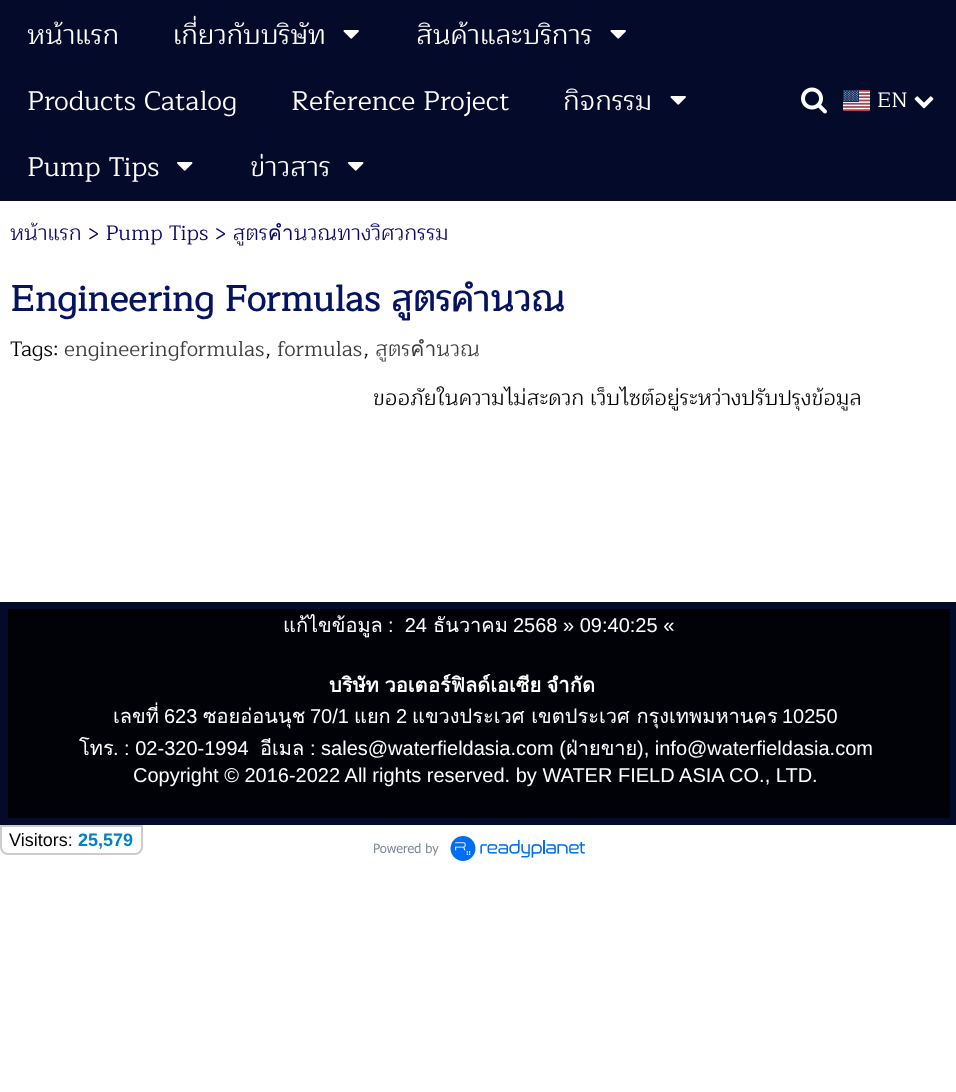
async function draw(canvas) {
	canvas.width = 956;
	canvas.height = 1092;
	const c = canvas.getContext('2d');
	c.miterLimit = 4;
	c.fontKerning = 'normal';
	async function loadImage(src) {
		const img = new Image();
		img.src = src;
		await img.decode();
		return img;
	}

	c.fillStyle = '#fff';
	c.fillRect(0, 0, 956, 1092);
	c.fillStyle = '#040a29';
	c.fillRect(0, 0, 956, 201);
	c.font = '27px Maitree';
	c.fillStyle = '#fff';
	c.fillText('หน้าแรก', 27, 44);
	c.fillText('เกี่ยวกับบริษัท', 173, 44);
	c.drawImage(await loadImage('img1.png'), 343, 30, 16, 9);
	c.fillText('สินค้าและบริการ', 416, 44);
	c.drawImage(await loadImage('img1.png'), 610, 30, 16, 9);
	for (const [text, x, y] of [
		['Products Catalog', 27, 110],
		['Reference Project', 291, 110],
		['กิจกรรม', 563, 110],
	]) {
		c.fillText(text, x, y);
	}
	c.drawImage(await loadImage('img1.png'), 670, 96, 16, 9);
	c.fillText('Pump Tips', 27, 176);
	c.drawImage(await loadImage('img2.png'), 177, 162, 16, 9);
	c.fillText('ข่าวสาร', 250, 176);
	c.drawImage(await loadImage('img2.png'), 348, 162, 16, 9);
	c.drawImage(await loadImage('img3.png'), 801, 87, 26, 27);
	c.drawImage(await loadImage('img4.png'), 843, 90, 27, 21);
	c.font = '21px Maitree';
	c.fillText('EN', 877, 107);
	c.drawImage(await loadImage('img5.png'), 914, 96, 20, 13);
	c.fillStyle = '#0b066b';
	c.fillText('หน้าแรก > Pump Tips > สูตรคำนวณทางวิศวกรรม', 10, 240);
	c.font = 'bold 36px Maitree';
	c.fillStyle = '#051361';
	c.fillText('Engineering Formulas สูตรคำนวณ', 10, 311);
	c.font = '21px Maitree';
	c.fillStyle = '#000';
	c.fillText('Tags:', 10, 356);
	c.fillStyle = '#3d3d3d';
	c.fillText('engineeringformulas', 64, 356);
	c.fillStyle = '#000';
	c.fillText(',', 265, 356);
	c.fillStyle = '#3d3d3d';
	c.fillText('formulas', 277, 356);
	c.fillStyle = '#000';
	c.fillText(',', 363, 356);
	c.fillStyle = '#3d3d3d';
	c.fillText('สูตรคำนวณ', 375, 356);
	c.fillStyle = '#000';
	c.fillText('ขออภัยในความไม่สะดวก เว็บไซต์อยู่ระหว่างปรับปรุงข้อมูล', 373, 405);
	c.fillStyle = '#040a29';
	c.fillRect(0, 602, 956, 223);
	c.fillStyle = '#010208';
	c.fillRect(8, 609, 942, 209);
	c.font = '20px Loma';
	c.fillStyle = '#fff';
	c.fillText('แก้ไขข้อมูล', 283, 632);
	c.font = '20px Liberation Sans';
	c.fillText(':  24', 388, 632);
	c.font = '20px Loma';
	c.fillText('ธันวาคม', 433, 632);
	c.font = '20px Liberation Sans';
	c.fillText('2568 » 09:40:25 «', 513, 632);
	c.wordSpacing = '-1px';
	c.font = 'bold 20px Loma';
	c.fillText('บริษัท วอเต', 329, 692);
	c.fillText('อร์ฟิลด์เอเซีย จำกัด', 428, 692);
	c.wordSpacing = '0px';
	c.font = '20px Loma';
	c.fillText('เลขที่', 113, 723);
	c.font = '20px Liberation Sans';
	c.fillText('623', 164, 723);
	c.font = '20px Loma';
	c.fillText('ซอยอ่อนนุช', 203, 723);
	c.font = '20px Liberation Sans';
	c.fillText('70/1', 310, 723);
	c.font = '20px Loma';
	c.fillText('แยก', 354, 723);
	c.font = '20px Liberation Sans';
	c.fillText('2', 396, 723);
	c.font = '20px Loma';
	c.fillText('แขวงประเวศ เขตประเวศ กรุงเทพมหานคร', 412, 723);
	c.font = '20px Liberation Sans';
	c.fillText('10250', 782, 723);
	c.font = '20px Loma';
	c.fillText('โทร', 79, 755);
	c.font = '20px Liberation Sans';
	c.fillText('. : 02-320-1994', 113, 755);
	c.font = '20px Loma';
	c.fillText('อีเมล', 260, 755);
	c.font = '20px Liberation Sans';
	c.fillText(': sales@waterfieldasia.com (', 310, 755);
	c.font = '20px Loma';
	c.fillText('ฝ่ายขาย', 566, 755);
	c.font = '20px Liberation Sans';
	c.fillText('), info@waterfieldasia.com', 637, 755);
	c.fillText('Copyright © 2016-2022 All rights reserved. by WATER FIELD ASIA CO., LTD.', 133, 782);
	c.beginPath();
	c.roundRect(1, 826, 141, 28, [0, 0, 7, 7]);
	c.strokeStyle = '#ccc';
	c.lineWidth = 2;
	c.stroke();
	c.font = '18px Liberation Sans';
	c.fillStyle = '#000';
	c.fillText('Visitors:', 9, 846);
	c.font = 'bold 18px Liberation Sans';
	c.fillStyle = '#0081c8';
	c.fillText('25,579', 78, 846);
	c.drawImage(await loadImage('img6.png'), 374, 836, 211, 25);
}

draw(document.querySelector('canvas'));
